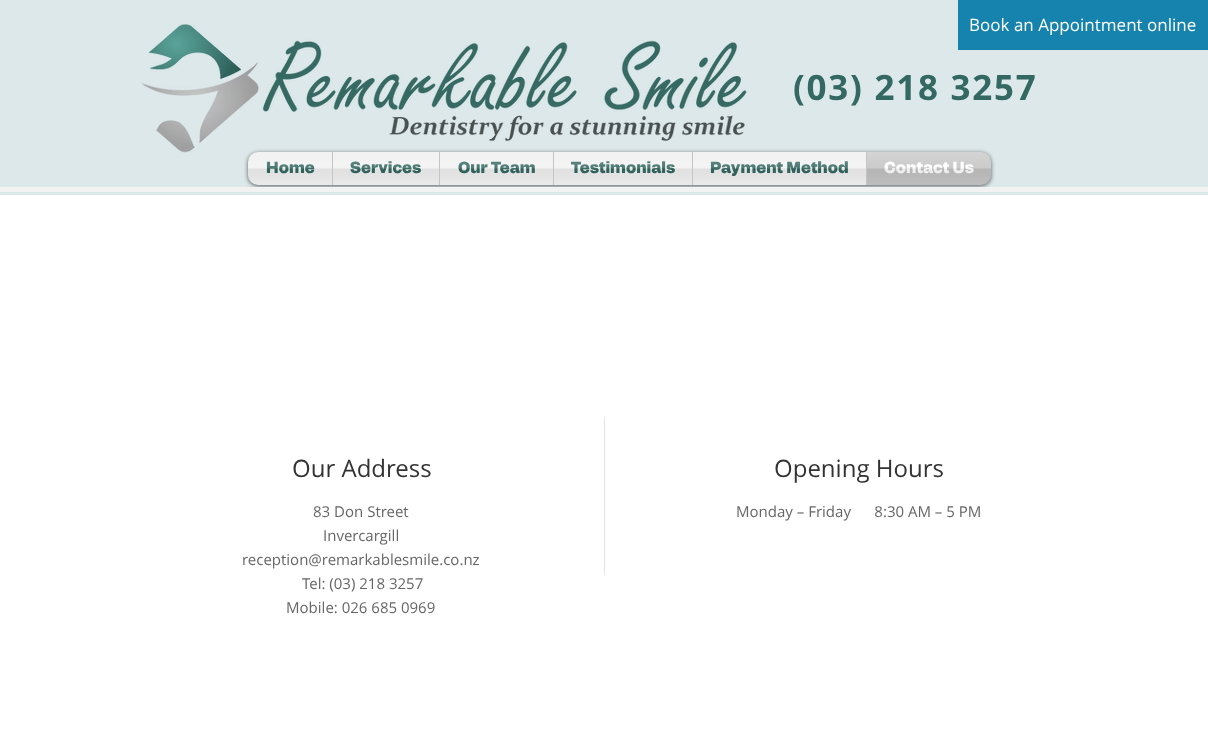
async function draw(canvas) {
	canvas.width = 1208;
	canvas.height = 730;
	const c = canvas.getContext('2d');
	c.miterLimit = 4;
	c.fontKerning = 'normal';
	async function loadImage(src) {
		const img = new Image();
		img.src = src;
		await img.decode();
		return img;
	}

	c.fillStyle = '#fff';
	c.fillRect(0, 0, 1208, 730);
	c.fillStyle = '#dde8eb';
	c.fillRect(0, 0, 1208, 195);
	c.fillStyle = '#1583ae';
	c.fillRect(958, 0, 250, 50);
	c.font = '17px Open Sans';
	c.fillStyle = '#fff';
	c.fillText('Book an Appointment online', 969, 31);
	c.drawImage(await loadImage('img1.png'), 141, 24, 606, 129);
	c.letterSpacing = '1.75px';
	c.font = 'bold 35px Open Sans';
	c.fillStyle = '#346862';
	c.fillText('(03) 218 3257', 793, 100);
	c.fillStyle = '#00000099';
	c.filter = 'blur(2px)';
	c.beginPath();
	c.roundRect(248, 153, 743, 33, 10);
	c.fill();
	c.filter = 'none';
	c.drawImage(await loadImage('img2.png'), 248, 175, 743, 10);
	c.fillStyle = '#f2f2f2';
	c.beginPath();
	c.roundRect(248, 152, 84, 33, [10, 0, 0, 10]);
	c.fill();
	c.letterSpacing = '0px';
	c.font = '900 16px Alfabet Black';
	c.fillStyle = '#346862';
	c.fillText('Home', 266, 173);
	c.drawImage(await loadImage('img3.png'), 248, 161, 84, 24);
	c.fillStyle = '#f2f2f2';
	c.fillRect(333, 152, 106, 33);
	c.fillStyle = '#c4c4c4';
	c.fillRect(332, 152, 1, 33);
	c.fillStyle = '#346862';
	c.fillText('Services', 350, 173);
	c.drawImage(await loadImage('img4.png'), 333, 161, 106, 24);
	c.fillStyle = '#f2f2f2';
	c.fillRect(440, 152, 113, 33);
	c.fillStyle = '#c4c4c4';
	c.fillRect(439, 152, 1, 33);
	c.fillStyle = '#346862';
	c.fillText('Our Team', 458, 173);
	c.drawImage(await loadImage('img5.png'), 440, 161, 113, 24);
	c.fillStyle = '#f2f2f2';
	c.fillRect(554, 152, 138, 33);
	c.fillStyle = '#c4c4c4';
	c.fillRect(553, 152, 1, 33);
	c.fillStyle = '#346862';
	c.fillText('Testimonials', 571, 173);
	c.drawImage(await loadImage('img6.png'), 554, 161, 138, 24);
	c.fillStyle = '#f2f2f2';
	c.fillRect(693, 152, 173, 33);
	c.fillStyle = '#c4c4c4';
	c.fillRect(692, 152, 1, 33);
	c.fillStyle = '#346862';
	c.fillText('Payment Method', 710, 173);
	c.drawImage(await loadImage('img7.png'), 693, 161, 173, 24);
	c.fillStyle = '#c4c4c4';
	c.beginPath();
	c.roundRect(866, 152, 125, 33, [0, 10, 10, 0]);
	c.fill();
	c.fillStyle = '#fff';
	c.fillText('Contact Us', 884, 173);
	c.drawImage(await loadImage('img8.png'), 867, 152, 124, 33);
	c.fillStyle = '#f2f2f2';
	c.fillRect(0, 187, 1208, 5);
	c.font = '24px Open Sans';
	c.fillStyle = '#333';
	c.fillText('Our Address', 292, 477);
	c.fillStyle = '#e2e2e2';
	c.fillRect(604, 417, 1, 158);
	c.fillStyle = '#333';
	c.fillText('Opening Hours', 774, 477);
	c.font = '15px Open Sans';
	c.fillStyle = '#666';
	for (const [text, x, y] of [
		['83 Don Street', 313, 517],
		['Invercargill', 323, 541],
		['reception@remarkablesmile.co.nz', 242, 565],
		['Tel: (03) 218 3257', 302, 589],
		['Mobile: 026 685 0969', 286, 613],
		['Monday – Friday      8:30 AM – 5 PM', 736, 517],
	]) {
		c.fillText(text, x, y);
	}
}

draw(document.querySelector('canvas'));
